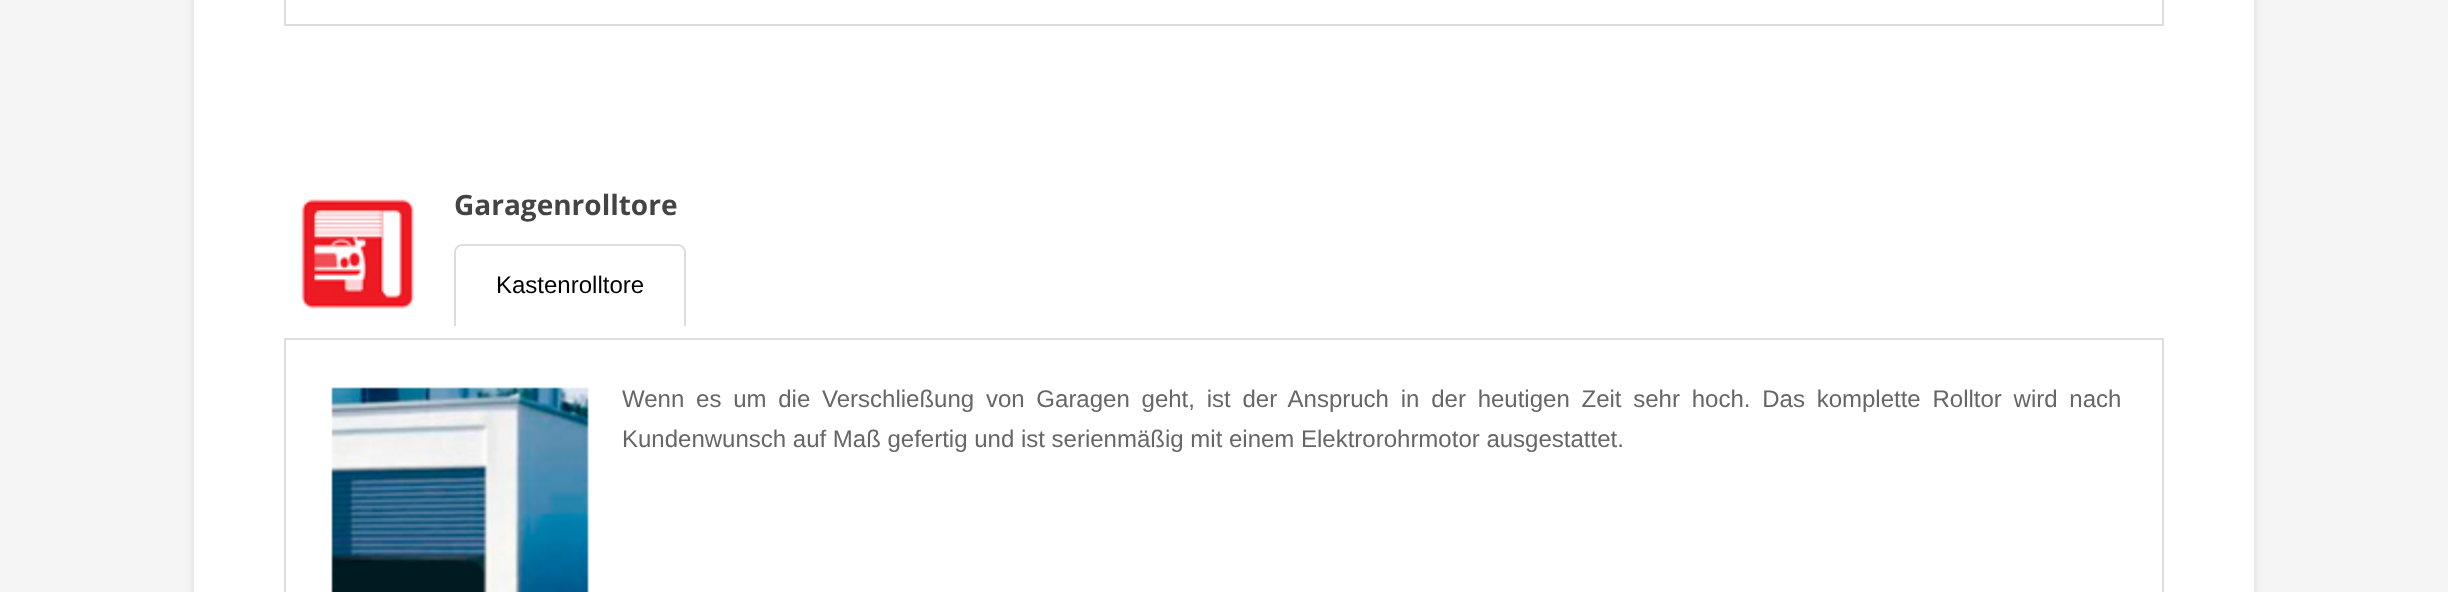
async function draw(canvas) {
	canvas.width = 2448;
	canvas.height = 592;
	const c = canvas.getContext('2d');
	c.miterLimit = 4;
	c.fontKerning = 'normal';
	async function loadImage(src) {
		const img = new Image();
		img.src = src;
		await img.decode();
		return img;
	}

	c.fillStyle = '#f5f5f5';
	c.fillRect(0, 0, 2448, 592);
	c.fillStyle = '#0000001a';
	c.filter = 'blur(5px)';
	c.beginPath();
	c.rect(194, -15, 2060, 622);
	c.fill();
	c.filter = 'none';
	for (const [x, y, w, h, color] of [
		[194, 0, 2060, 592, '#fff'],
		[2162, 0, 2, 26, '#ddd'],
		[284, 24, 1880, 2, '#ddd'],
		[284, 0, 2, 26, '#ddd'],
	]) {
		c.fillStyle = color;
		c.fillRect(x, y, w, h);
	}
	c.drawImage(await loadImage('img1.png'), 301, 192, 114, 117);
	c.font = 'bold 28px Open Sans';
	c.fillStyle = '#444';
	c.fillText('Garagenrolltore', 454, 215);
	c.fillStyle = '#ddd';
	c.fillRect(284, 338, 1880, 2);
	c.beginPath();
	c.moveTo(462, 244);
	c.lineTo(678, 244);
	c.bezierCurveTo(682, 244, 686, 248, 686, 252);
	c.lineTo(686, 326);
	c.lineTo(454, 326);
	c.lineTo(454, 252);
	c.bezierCurveTo(454, 248, 458, 244, 462, 244);
	c.closePath();
	c.moveTo(462, 246);
	c.lineTo(678, 246);
	c.bezierCurveTo(681, 246, 684, 249, 684, 252);
	c.lineTo(684, 326);
	c.lineTo(456, 326);
	c.lineTo(456, 252);
	c.bezierCurveTo(456, 249, 459, 246, 462, 246);
	c.closePath();
	c.fill('evenodd');
	c.font = '24px Liberation Sans';
	c.fillStyle = '#000';
	c.fillText('Kastenrolltore', 496, 293);
	c.fillStyle = '#ddd';
	c.fillRect(2162, 340, 2, 252);
	c.fillRect(284, 340, 2, 252);
	c.drawImage(await loadImage('img2.png'), 331, 387, 258, 205);
	c.wordSpacing = '5.1px';
	c.fillStyle = '#666';
	c.fillText('Wenn es um die Verschließung von Garagen geht, ist der Anspruch in der heutigen Zeit sehr hoch. Das komplette Rolltor wird nach', 622, 407);
	c.wordSpacing = '0px';
	c.fillText('Kundenwunsch auf Maß gefertig und ist serienmäßig mit einem Elektrorohrmotor ausgestattet.', 622, 447);
}

draw(document.querySelector('canvas'));
